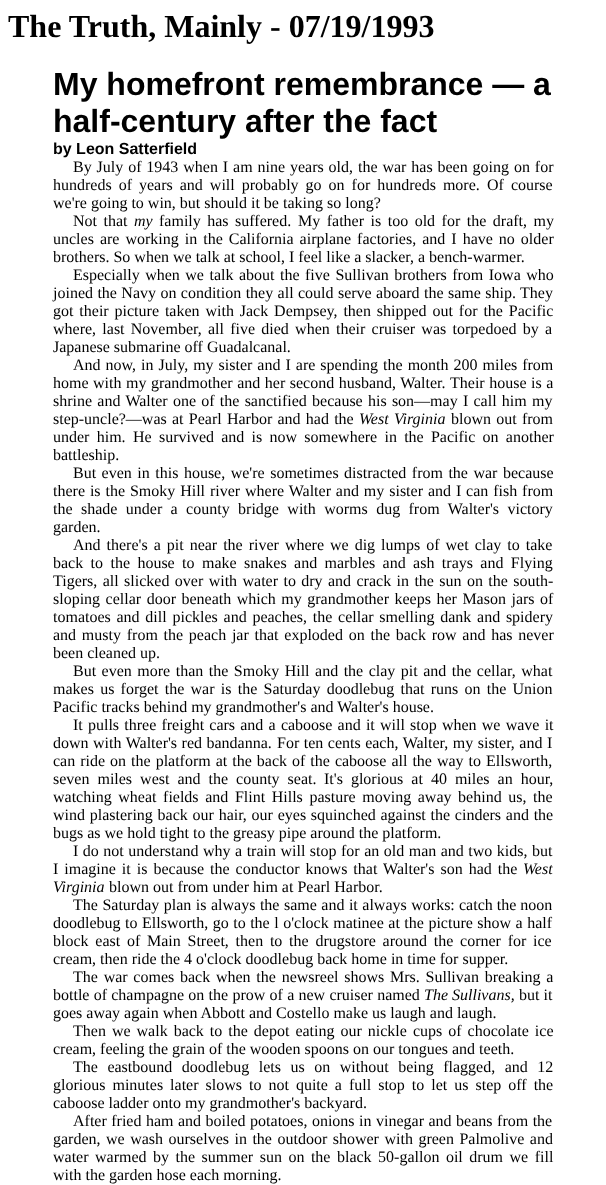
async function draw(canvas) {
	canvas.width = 606;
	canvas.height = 1185;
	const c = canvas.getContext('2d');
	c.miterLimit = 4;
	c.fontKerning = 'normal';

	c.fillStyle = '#fff';
	c.fillRect(0, 0, 606, 1185);
	c.font = 'bold 32px Liberation Serif';
	c.fillStyle = '#000';
	c.fillText('The Truth, Mainly - 07/19/1993', 8, 37);
	c.font = 'bold 32px Liberation Sans';
	c.fillText('My homefront remembrance — a', 53, 95);
	c.fillText('half-century after the fact', 53, 132);
	c.font = 'bold 16px Liberation Sans';
	c.fillText('by Leon Satterfield', 53, 154);
	c.wordSpacing = '0.9px';
	c.font = '16px Liberation Serif';
	c.fillText('By July of 1943 when I am nine years old, the war has been going on for', 73, 172);
	c.wordSpacing = '3px';
	c.fillText('hundreds of years and will probably go on for hundreds more.', 53, 190);
	c.fillText('Of course', 487, 190);
	c.wordSpacing = '0px';
	c.fillText('we\'re going to win, but should it be taking so long?', 53, 208);
	c.wordSpacing = '2.5px';
	c.fillText('Not that', 73, 226);
	c.wordSpacing = '0px';
	c.font = 'italic 16px Liberation Serif';
	c.fillText('my', 134, 226);
	c.wordSpacing = '2.5px';
	c.font = '16px Liberation Serif';
	c.fillText('family has suffered.', 159, 226);
	c.fillText('My father is too old for the draft, my', 298, 226);
	c.wordSpacing = '2px';
	c.fillText('uncles are working in the California airplane factories, and I have no older', 53, 244);
	c.wordSpacing = '0px';
	c.fillText('brothers. So when we talk at school, I feel like a slacker, a bench-warmer.', 53, 262);
	c.wordSpacing = '1.5px';
	c.fillText('Especially when we talk about the five Sullivan brothers from Iowa who', 73, 280);
	c.wordSpacing = '0.4px';
	c.fillText('joined the Navy on condition they all could serve aboard the same ship.', 53, 298);
	c.wordSpacing = '0px';
	c.fillText('They', 520, 298);
	c.wordSpacing = '1.9px';
	c.fillText('got their picture taken with Jack Dempsey, then shipped out for the Pacific', 53, 316);
	c.wordSpacing = '2.25px';
	c.fillText('where, last November, all five died when their cruiser was torpedoed by a', 53, 334);
	c.wordSpacing = '0px';
	c.fillText('Japanese submarine off Guadalcanal.', 53, 352);
	c.wordSpacing = '1px';
	c.fillText('And now, in July, my sister and I are spending the month 200 miles from', 73, 370);
	c.wordSpacing = '0.5px';
	c.fillText('home with my grandmother and her second husband, Walter.', 53, 388);
	c.fillText('Their house is a', 450, 388);
	c.wordSpacing = '1.25px';
	c.fillText('shrine and Walter one of the sanctified because his son—may I call him my', 53, 406);
	c.fillText('step-uncle?—was at Pearl Harbor and had the', 53, 424);
	c.font = 'italic 16px Liberation Serif';
	c.fillText('West Virginia', 359, 424);
	c.font = '16px Liberation Serif';
	c.fillText('blown out from', 451, 424);
	c.wordSpacing = '3.25px';
	c.fillText('under him.', 53, 442);
	c.fillText('He survived and is now somewhere in the Pacific on another', 133, 442);
	c.wordSpacing = '0px';
	c.fillText('battleship.', 53, 460);
	c.wordSpacing = '1.5px';
	c.fillText('But even in this house, we\'re sometimes distracted from the war because', 73, 478);
	c.wordSpacing = '0.9px';
	c.fillText('there is the Smoky Hill river where Walter and my sister and I can fish from', 53, 496);
	c.wordSpacing = '4.4px';
	c.fillText('the shade under a county bridge with worms dug from Walter\'s victory', 53, 514);
	c.wordSpacing = '0px';
	c.fillText('garden.', 53, 532);
	c.wordSpacing = '2px';
	c.fillText('And there\'s a pit near the river where we dig lumps of wet clay to take', 73, 550);
	c.wordSpacing = '3.4px';
	c.fillText('back to the house to make snakes and marbles and ash trays and Flying', 53, 568);
	c.wordSpacing = '1.4px';
	c.fillText('Tigers, all slicked over with water to dry and crack in the sun on the south-', 53, 586);
	c.wordSpacing = '1.5px';
	c.fillText('sloping cellar door beneath which my grandmother keeps her Mason jars of', 53, 604);
	c.wordSpacing = '1.75px';
	c.fillText('tomatoes and dill pickles and peaches, the cellar smelling dank and spidery', 53, 622);
	c.fillText('and musty from the peach jar that exploded on the back row and has never', 53, 640);
	c.wordSpacing = '0px';
	c.fillText('been cleaned up.', 53, 658);
	c.wordSpacing = '1.5px';
	c.fillText('But even more than the Smoky Hill and the clay pit and the cellar, what', 73, 676);
	c.wordSpacing = '2.25px';
	c.fillText('makes us forget the war is the Saturday doodlebug that runs on the Union', 53, 694);
	c.wordSpacing = '0px';
	c.fillText('Pacific tracks behind my grandmother\'s and Walter\'s house.', 53, 712);
	c.wordSpacing = '1.2px';
	c.fillText('It pulls three freight cars and a caboose and it will stop when we wave it', 73, 730);
	c.wordSpacing = '0.5px';
	c.fillText('down with Walter\'s red bandanna.', 53, 748);
	c.fillText('For ten cents each, Walter, my sister, and I', 277, 748);
	c.wordSpacing = '1px';
	c.fillText('can ride on the platform at the back of the caboose all the way to Ellsworth,', 53, 766);
	c.wordSpacing = '4px';
	c.fillText('seven miles west and the county seat.', 53, 784);
	c.fillText('It\'s glorious at 40 miles an hour,', 324, 784);
	c.wordSpacing = '2.6px';
	c.fillText('watching wheat fields and Flint Hills pasture moving away behind us, the', 53, 802);
	c.wordSpacing = '0.75px';
	c.fillText('wind plastering back our hair, our eyes squinched against the cinders and the', 53, 820);
	c.wordSpacing = '0px';
	c.fillText('bugs as we hold tight to the greasy pipe around the platform.', 53, 838);
	c.wordSpacing = '0.5px';
	c.fillText('I do not understand why a train will stop for an old man and two kids, but', 73, 856);
	c.wordSpacing = '2px';
	c.fillText('I imagine it is because the conductor knows that Walter\'s son had the', 53, 874);
	c.wordSpacing = '0px';
	c.font = 'italic 16px Liberation Serif';
	c.fillText('West', 523, 874);
	c.fillText('Virginia', 53, 892);
	c.font = '16px Liberation Serif';
	c.fillText('blown out from under him at Pearl Harbor.', 109, 892);
	c.wordSpacing = '0.5px';
	c.fillText('The Saturday plan is always the same and it always works:', 73, 910);
	c.wordSpacing = '0px';
	c.fillText('catch the noon', 459, 910);
	c.wordSpacing = '0.5px';
	c.fillText('doodlebug to Ellsworth, go to the l o\'clock matinee at the picture show a half', 53, 928);
	c.wordSpacing = '2.75px';
	c.fillText('block east of Main Street, then to the drugstore around the corner for ice', 53, 946);
	c.wordSpacing = '0px';
	c.fillText('cream, then ride the 4 o\'clock doodlebug back home in time for supper.', 53, 964);
	c.wordSpacing = '1.75px';
	c.fillText('The war comes back when the newsreel shows Mrs. Sullivan breaking a', 73, 982);
	c.wordSpacing = '0.25px';
	c.fillText('bottle of champagne on the prow of a new cruiser named', 53, 1000);
	c.wordSpacing = '0px';
	c.font = 'italic 16px Liberation Serif';
	c.fillText('The Sullivans,', 424, 1000);
	c.font = '16px Liberation Serif';
	c.fillText('but it', 519, 1000);
	c.fillText('goes away again when Abbott and Costello make us laugh and laugh.', 53, 1018);
	c.wordSpacing = '2px';
	c.fillText('Then we walk back to the depot eating our nickle cups of chocolate ice', 73, 1036);
	c.wordSpacing = '0px';
	c.fillText('cream, feeling the grain of the wooden spoons on our tongues and teeth.', 53, 1054);
	c.wordSpacing = '5.5px';
	c.fillText('The eastbound doodlebug lets us on without being flagged, and 12', 73, 1072);
	c.wordSpacing = '3px';
	c.fillText('glorious minutes later slows to not quite a full stop to let us step off the', 53, 1090);
	c.wordSpacing = '0px';
	c.fillText('caboose ladder onto my grandmother\'s backyard.', 53, 1108);
	c.wordSpacing = '0.5px';
	c.fillText('After fried ham and boiled potatoes, onions in vinegar and beans from the', 73, 1126);
	c.wordSpacing = '0px';
	c.fillText('garden,', 53, 1144);
	c.wordSpacing = '1.5px';
	c.fillText('we wash ourselves in the outdoor shower with green Palmolive and', 106, 1144);
	c.wordSpacing = '2.5px';
	c.fillText('water warmed by the summer sun on the black 50-gallon oil drum we fill', 53, 1162);
	c.wordSpacing = '0px';
	c.fillText('with the garden hose each morning.', 53, 1180);
}

draw(document.querySelector('canvas'));
